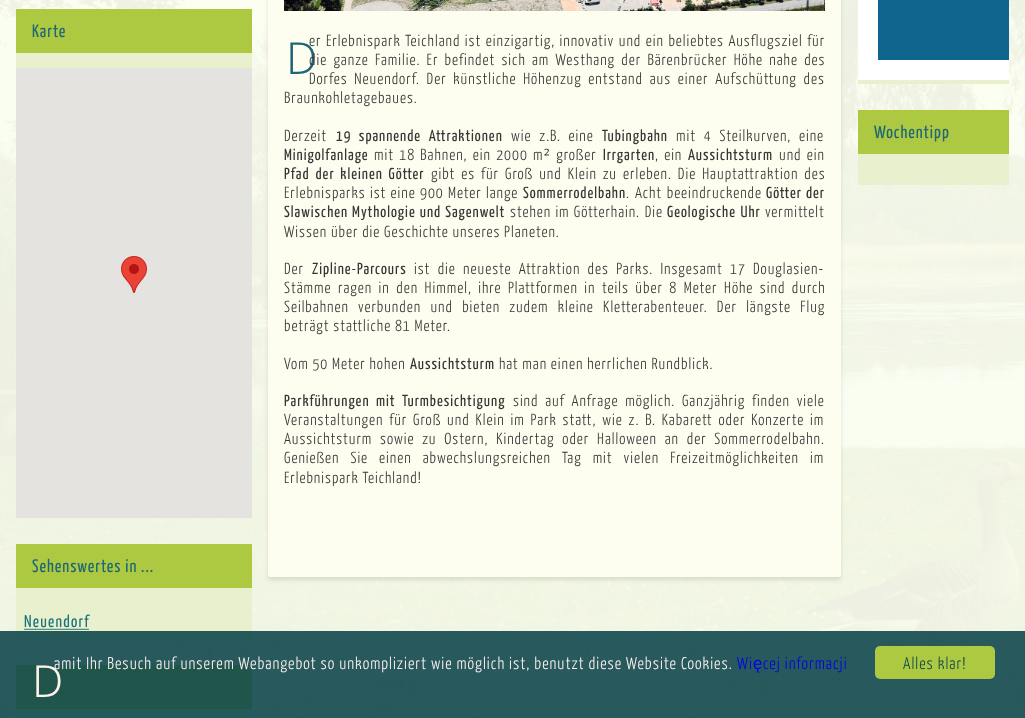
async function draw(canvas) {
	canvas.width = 1025;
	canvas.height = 718;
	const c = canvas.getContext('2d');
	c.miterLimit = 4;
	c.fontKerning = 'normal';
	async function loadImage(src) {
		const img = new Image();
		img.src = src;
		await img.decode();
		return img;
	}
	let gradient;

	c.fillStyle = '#fff';
	c.fillRect(0, 0, 1025, 718);
	c.drawImage(await loadImage('img1.png'), 0, 0, 1025, 718);
	c.fillStyle = '#e9f0ce';
	c.fillRect(16, 53, 236, 15);
	c.fillStyle = '#adc941';
	c.fillRect(16, 9, 236, 44);
	c.letterSpacing = '1px';
	c.font = '18px Yanone Kaffeesatz';
	c.fillStyle = '#1f6677';
	c.fillText('Karte', 32, 37);
	c.fillStyle = '#e5e3df';
	c.fillRect(16, 68, 236, 450);
	c.drawImage(await loadImage('img2.png'), 121, 256, 26, 37);
	c.fillStyle = '#e9f0ce';
	c.fillRect(16, 588, 236, 51);
	c.fillStyle = '#adc941';
	c.fillRect(16, 544, 236, 44);
	c.fillStyle = '#1f6677';
	c.fillText('Sehenswertes in ...', 32, 572);
	c.letterSpacing = '1.25px';
	c.font = '17px Yanone Kaffeesatz';
	c.fillStyle = '#1b747d';
	c.fillText('Neuendorf', 24, 627);
	gradient = c.createLinearGradient(57, 611, 57, 630);
	gradient.addColorStop(0.8, '#e9f0ce');
	gradient.addColorStop(0.9, '#e9f0ce');
	gradient.addColorStop(1, '#1b747d');
	c.fillStyle = gradient;
	c.fillRect(24, 628, 65, 2);
	c.fillStyle = '#e9f0ce';
	c.fillRect(16, 709, 236, 9);
	c.fillStyle = '#adc941';
	c.fillRect(16, 665, 236, 44);
	c.fillStyle = '#0000001a';
	c.filter = 'blur(2px)';
	c.beginPath();
	c.roundRect(268, -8, 573, 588, 2);
	c.fill();
	c.filter = 'none';
	c.fillStyle = '#fefef0';
	c.beginPath();
	c.roundRect(268, -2, 573, 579, 2);
	c.fill();
	c.drawImage(await loadImage('img3.png'), 284, 0, 540, 11);
	c.drawImage(await loadImage('img4.png'), 824, 0, 1, 11);
	c.letterSpacing = '1px';
	c.font = '300 44px Noto Sans';
	c.fillStyle = '#1f6677';
	c.fillText('D', 286, 74);
	c.wordSpacing = '0.75px';
	c.font = '300 16px Yanone Kaffeesatz';
	c.fillStyle = '#363636';
	c.fillText('er Erlebnispark Teichland ist einzigartig, innovativ und ein beliebtes Ausflugsziel für', 309, 46);
	c.wordSpacing = '2.5px';
	c.fillText('die ganze Familie. Er befindet sich am Westhang der Bärenbrücker Höhe nahe des', 309, 65);
	c.wordSpacing = '3px';
	c.fillText('Dorfes Neuendorf. Der künstliche Höhenzug entstand aus einer Aufschüttung des', 309, 84);
	c.wordSpacing = '0px';
	c.fillText('Braunkohletagebaues.', 284, 103);
	c.fillText('Derzeit', 284, 141);
	c.wordSpacing = '4px';
	c.font = '16px Yanone Kaffeesatz';
	c.fillText('19 spannende Attraktionen', 336, 141);
	c.font = '300 16px Yanone Kaffeesatz';
	c.fillText('wie z.B. eine', 511, 141);
	c.wordSpacing = '0px';
	c.font = '16px Yanone Kaffeesatz';
	c.fillText('Tubingbahn', 602, 141);
	c.wordSpacing = '4px';
	c.font = '300 16px Yanone Kaffeesatz';
	c.fillText('mit 4 Steilkurven, eine', 676, 141);
	c.wordSpacing = '0px';
	c.font = '16px Yanone Kaffeesatz';
	c.fillText('Minigolfanlage', 284, 160);
	c.wordSpacing = '1.5px';
	c.font = '300 16px Yanone Kaffeesatz';
	c.fillText('mit 18 Bahnen, ein 2000 m² großer', 374, 160);
	c.wordSpacing = '0px';
	c.font = '16px Yanone Kaffeesatz';
	c.fillText('Irrgarten', 603, 160);
	c.wordSpacing = '1.5px';
	c.font = '300 16px Yanone Kaffeesatz';
	c.fillText(', ein', 655, 160);
	c.wordSpacing = '0px';
	c.font = '16px Yanone Kaffeesatz';
	c.fillText('Aussichtsturm', 688, 160);
	c.wordSpacing = '1.5px';
	c.font = '300 16px Yanone Kaffeesatz';
	c.fillText('und ein', 779, 160);
	c.wordSpacing = '2.25px';
	c.font = '16px Yanone Kaffeesatz';
	c.fillText('Pfad der kleinen Götter', 284, 179);
	c.font = '300 16px Yanone Kaffeesatz';
	c.fillText('gibt es für Groß und Klein zu erleben. Die Hauptattraktion des', 431, 179);
	c.wordSpacing = '0.5px';
	c.fillText('Erlebnisparks ist eine 900 Meter lange', 284, 198);
	c.wordSpacing = '0px';
	c.font = '16px Yanone Kaffeesatz';
	c.fillText('Sommerrodelbahn', 523, 198);
	c.font = '300 16px Yanone Kaffeesatz';
	c.fillText('.', 626, 198);
	c.wordSpacing = '1px';
	c.fillText('Acht beeindruckende', 635, 198);
	c.wordSpacing = '0.5px';
	c.font = '16px Yanone Kaffeesatz';
	c.fillText('Götter der', 766, 198);
	c.fillText('Slawischen Mythologie und Sagenwelt', 284, 217);
	c.font = '300 16px Yanone Kaffeesatz';
	c.fillText('stehen im Götterhain', 510, 217);
	c.wordSpacing = '1px';
	c.fillText('. Die', 636, 217);
	c.font = '16px Yanone Kaffeesatz';
	c.fillText('Geologische Uhr', 667, 217);
	c.wordSpacing = '0px';
	c.font = '300 16px Yanone Kaffeesatz';
	for (const [text, x, y] of [
		['vermittelt', 765, 217],
		['Wissen über die Geschichte unseres Planeten.', 284, 237],
		['Der', 284, 274],
	]) {
		c.fillText(text, x, y);
	}
	c.font = '16px Yanone Kaffeesatz';
	c.fillText('Zipline-Parcours', 312, 274);
	c.wordSpacing = '3.5px';
	c.font = '300 16px Yanone Kaffeesatz';
	c.fillText('ist die neueste Attraktion des Parks. Insgesamt 17 Douglasien-', 414, 274);
	c.wordSpacing = '2.75px';
	c.fillText('Stämme ragen in den Himmel, ihre Plattformen in teils über 8 Meter Höhe sind durch', 284, 293);
	c.wordSpacing = '5.5px';
	c.fillText('Seilbahnen verbunden und bieten zudem kleine Kletterabenteuer. Der längste Flug', 284, 312);
	c.wordSpacing = '0px';
	c.fillText('beträgt stattliche 81 Meter.', 284, 331);
	c.fillText('Vom 50 Meter hohen', 284, 369);
	c.font = '16px Yanone Kaffeesatz';
	c.fillText('Aussichtsturm', 410, 369);
	c.font = '300 16px Yanone Kaffeesatz';
	c.fillText('hat man einen herrlichen Rundblick.', 499, 369);
	c.wordSpacing = '3px';
	c.font = '16px Yanone Kaffeesatz';
	c.fillText('Parkführungen mit Turmbesichtigung', 284, 406);
	c.font = '300 16px Yanone Kaffeesatz';
	c.fillText('sind auf Anfrage möglich. Ganzjährig finden viele', 513, 406);
	c.wordSpacing = '2.1px';
	c.fillText('Veranstaltungen für Groß und Klein im Park statt, wie z. B. Kabarett oder Konzerte im', 284, 425);
	c.wordSpacing = '4px';
	c.fillText('Aussichtsturm sowie zu Ostern, Kindertag oder Halloween an der Sommerrodelbahn.', 284, 444);
	c.wordSpacing = '7.25px';
	c.fillText('Genießen Sie einen abwechslungsreichen Tag mit vielen Freizeitmöglichkeiten im', 284, 463);
	c.wordSpacing = '0px';
	c.fillText('Erlebnispark Teichland!', 284, 483);
	c.fillStyle = '#e9f0ce';
	c.fillRect(858, 80, 151, 4);
	c.drawImage(await loadImage('img5.png'), 858, 0, 151, 80);
	c.fillRect(858, 154, 151, 31);
	c.fillStyle = '#adc941';
	c.fillRect(858, 110, 151, 44);
	c.font = '18px Yanone Kaffeesatz';
	c.fillStyle = '#1f6677';
	c.fillText('Wochentipp', 874, 138);
	c.fillStyle = '#11484ee6';
	c.fillRect(0, 631, 1025, 87);
	c.font = '300 44px Noto Sans';
	c.fillStyle = '#fef2ee';
	c.fillText('D', 32, 697);
	c.font = '300 17px Yanone Kaffeesatz';
	c.fillText('amit Ihr Besuch auf unserem Webangebot so unkompliziert wie möglich ist, benutzt diese Website Cookies.', 54, 669);
	c.fillStyle = '#00e';
	c.fillText('Wi', 737, 669);
	c.font = '17px Liberation Sans';
	c.fillText('ę', 753, 669);
	c.font = '300 17px Yanone Kaffeesatz';
	c.fillText('cej informacji', 763, 669);
	c.fillStyle = '#adc941';
	c.beginPath();
	c.roundRect(875, 646, 120, 33, 5);
	c.fill();
	c.fillStyle = '#11484e';
	c.fillText('Alles klar!', 903, 669);
}

draw(document.querySelector('canvas'));
